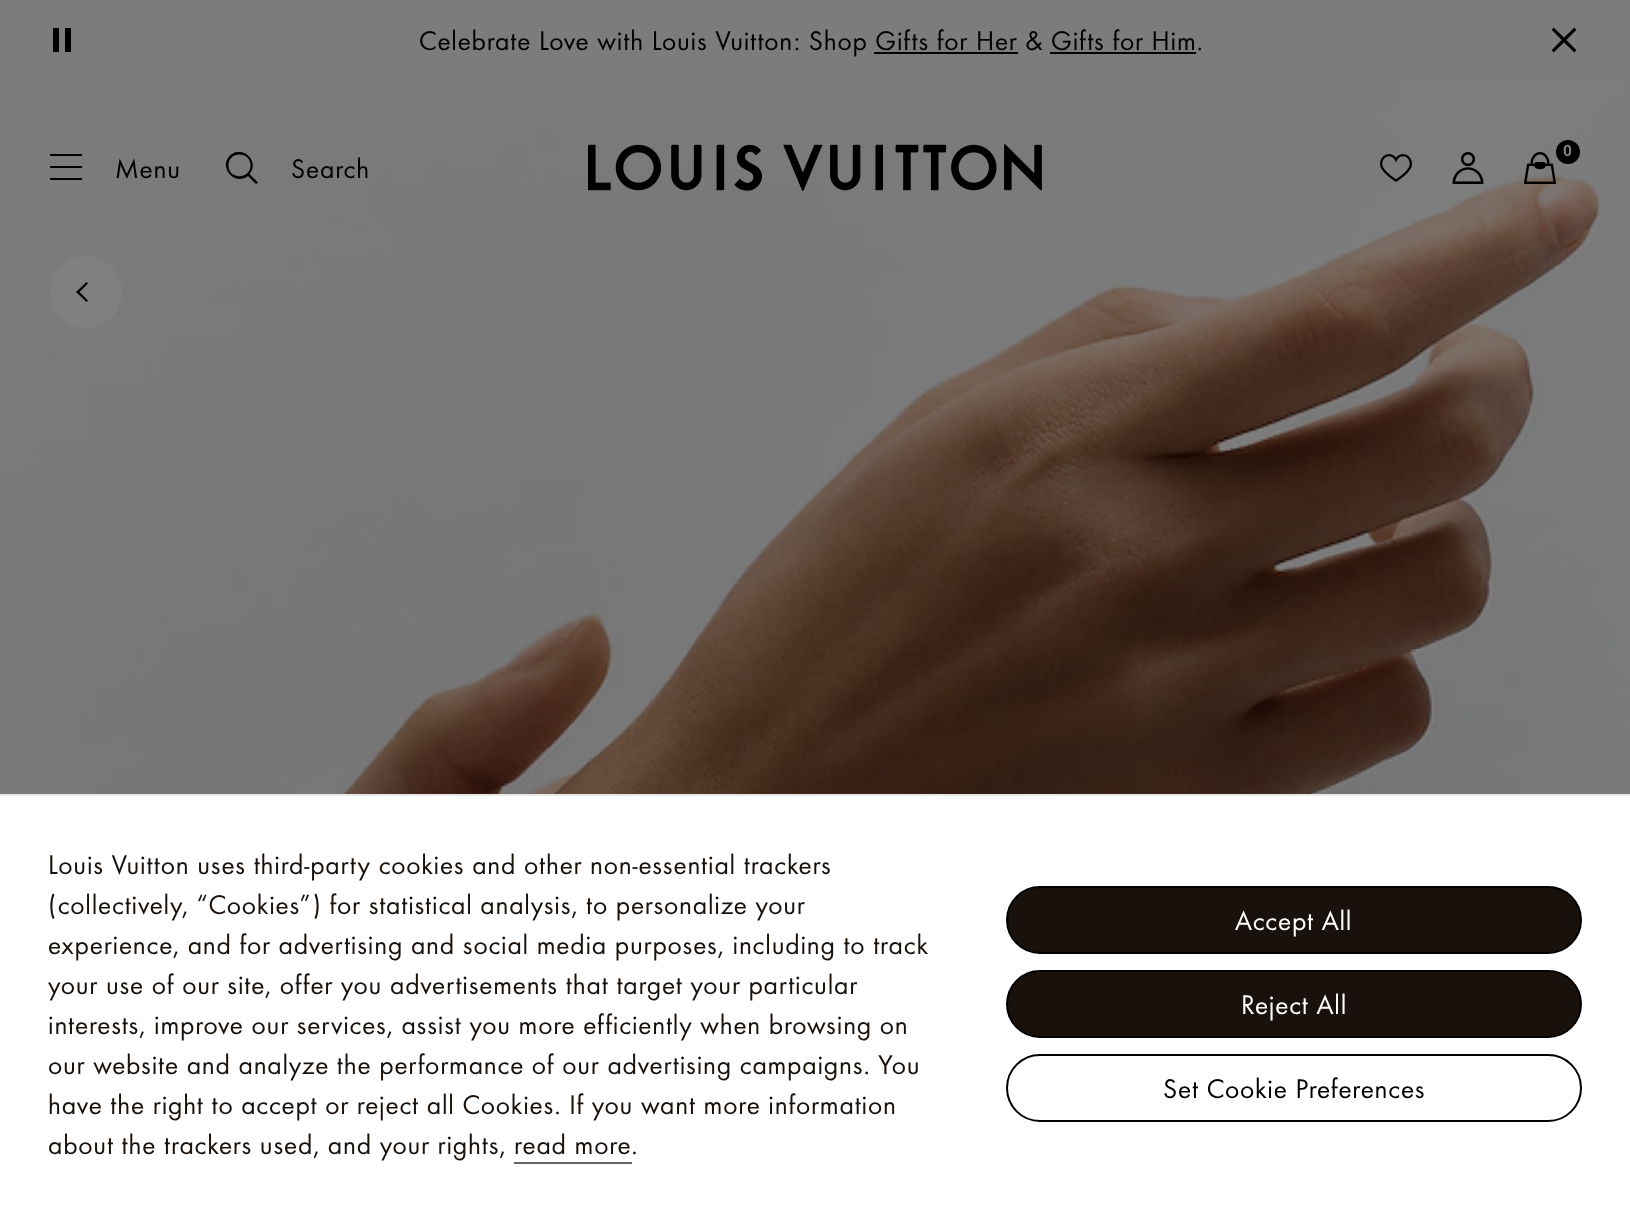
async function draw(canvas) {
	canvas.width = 1630;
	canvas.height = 1212;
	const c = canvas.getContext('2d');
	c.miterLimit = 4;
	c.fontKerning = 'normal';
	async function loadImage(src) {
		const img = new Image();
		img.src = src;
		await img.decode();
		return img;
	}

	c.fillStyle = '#fff';
	c.fillRect(0, 0, 1630, 1212);
	c.fillStyle = '#7c7c7c';
	c.fillRect(0, 0, 1630, 80);
	c.fillStyle = '#000';
	c.beginPath();
	c.moveTo(53, 28);
	c.lineTo(59, 28);
	c.lineTo(59, 52);
	c.lineTo(53, 52);
	c.closePath();
	c.moveTo(65, 28);
	c.lineTo(71, 28);
	c.lineTo(71, 52);
	c.lineTo(65, 52);
	c.closePath();
	c.fill();
	c.letterSpacing = '0.8px';
	c.font = '28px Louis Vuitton';
	c.fillText('Celebrate Love with Louis Vuitton: Shop Gifts for Her & Gifts for Him.', 419, 50);
	c.fillRect(874, 52, 144, 2);
	c.fillRect(1050, 52, 146, 2);
	c.drawImage(await loadImage('img1.png'), 1551, 27, 26, 26);
	c.drawImage(await loadImage('img6.png'), 0, 80, 1630, 714);
	c.drawImage(await loadImage('img2.png'), 588, 144, 454, 47);
	c.beginPath();
	c.arc(1568, 152, 12, 0, 2 * Math.PI);
	c.fill();
	c.letterSpacing = '0px';
	c.font = 'bold 16px Liberation Sans';
	c.fillStyle = '#808080';
	c.fillText('0', 1563, 156);
	c.drawImage(await loadImage('img3.png'), 1524, 152, 32, 32);
	c.drawImage(await loadImage('img4.png'), 1380, 154, 32, 28);
	c.drawImage(await loadImage('img5.png'), 1452, 152, 32, 32);
	for (const [x, y, w, h, color] of [
		[50, 154, 32, 2, '#000'],
		[50, 166, 32, 2, '#000'],
		[50, 178, 32, 2, '#000'],
	]) {
		c.fillStyle = color;
		c.fillRect(x, y, w, h);
	}
	c.letterSpacing = '0.8px';
	c.font = '28px Louis Vuitton';
	c.fillText('Menu', 115, 178);
	c.save();
	c.beginPath();
	c.rect(226, 152, 32, 32);
	c.clip();
	c.beginPath();
	c.moveTo(249.5, 174);
	c.bezierCurveTo(260.5, 161.5, 242, 144, 230, 155.5);
	c.bezierCurveTo(218, 167.5, 235, 186.5, 248, 176);
	c.lineTo(256, 184);
	c.lineTo(258, 182.5);
	c.closePath();
	c.moveTo(250.5, 165.5);
	c.bezierCurveTo(250.5, 179.5, 229, 180, 228.5, 166);
	c.bezierCurveTo(227.5, 151, 250.5, 150.5, 250.5, 165.5);
	c.fill('evenodd');
	c.restore();
	c.fillText('Search', 291, 178);
	c.drawImage(await loadImage('img7.png'), 168, 332, 1260, 462);
	c.fillStyle = '#808080';
	c.beginPath();
	c.arc(86, 292, 36, 0, 2 * Math.PI);
	c.fill();
	c.fillStyle = '#000';
	c.beginPath();
	c.moveTo(79.5, 292);
	c.lineTo(88, 283.5);
	c.lineTo(86.5, 282);
	c.lineTo(76, 292);
	c.lineTo(86.5, 302);
	c.lineTo(88, 300.5);
	c.closePath();
	c.fill('evenodd');
	c.fillStyle = '#eae8e4';
	c.fillRect(0, 794, 1630, 2);
	c.fillStyle = '#19110b';
	for (const [text, x, y] of [
		['Louis Vuitton uses third-party cookies and other non-essential trackers', 48, 874],
		['(collectively, “Cookies”) for statistical analysis, to personalize your', 48, 914],
		['experience, and for advertising and social media purposes, including to track', 48, 954],
		['your use of our site, offer you advertisements that target your particular', 48, 994],
		['interests, improve our services, assist you more efficiently when browsing on', 48, 1034],
		['our website and analyze the performance of our advertising campaigns. You', 48, 1074],
		['have the right to accept or reject all Cookies. If you want more information', 48, 1114],
		['about the trackers used, and your rights, read more.', 48, 1154],
	]) {
		c.fillText(text, x, y);
	}
	c.fillStyle = '#666';
	c.fillRect(514, 1162, 118, 2);
	c.fillStyle = '#19110b';
	c.beginPath();
	c.roundRect(1007, 887, 574, 66, 33);
	c.fill();
	c.strokeStyle = '#000';
	c.lineWidth = 2;
	c.stroke();
	c.fillStyle = '#fff';
	c.fillText('Accept All', 1235, 930);
	c.fillStyle = '#19110b';
	c.beginPath();
	c.roundRect(1007, 971, 574, 66, 33);
	c.fill();
	c.stroke();
	c.fillStyle = '#fff';
	c.fillText('Reject All', 1241, 1014);
	c.beginPath();
	c.roundRect(1007, 1055, 574, 66, 33);
	c.stroke();
	c.fillStyle = '#000';
	c.fillText('Set Cookie Preferences', 1163, 1098);
}

draw(document.querySelector('canvas'));
